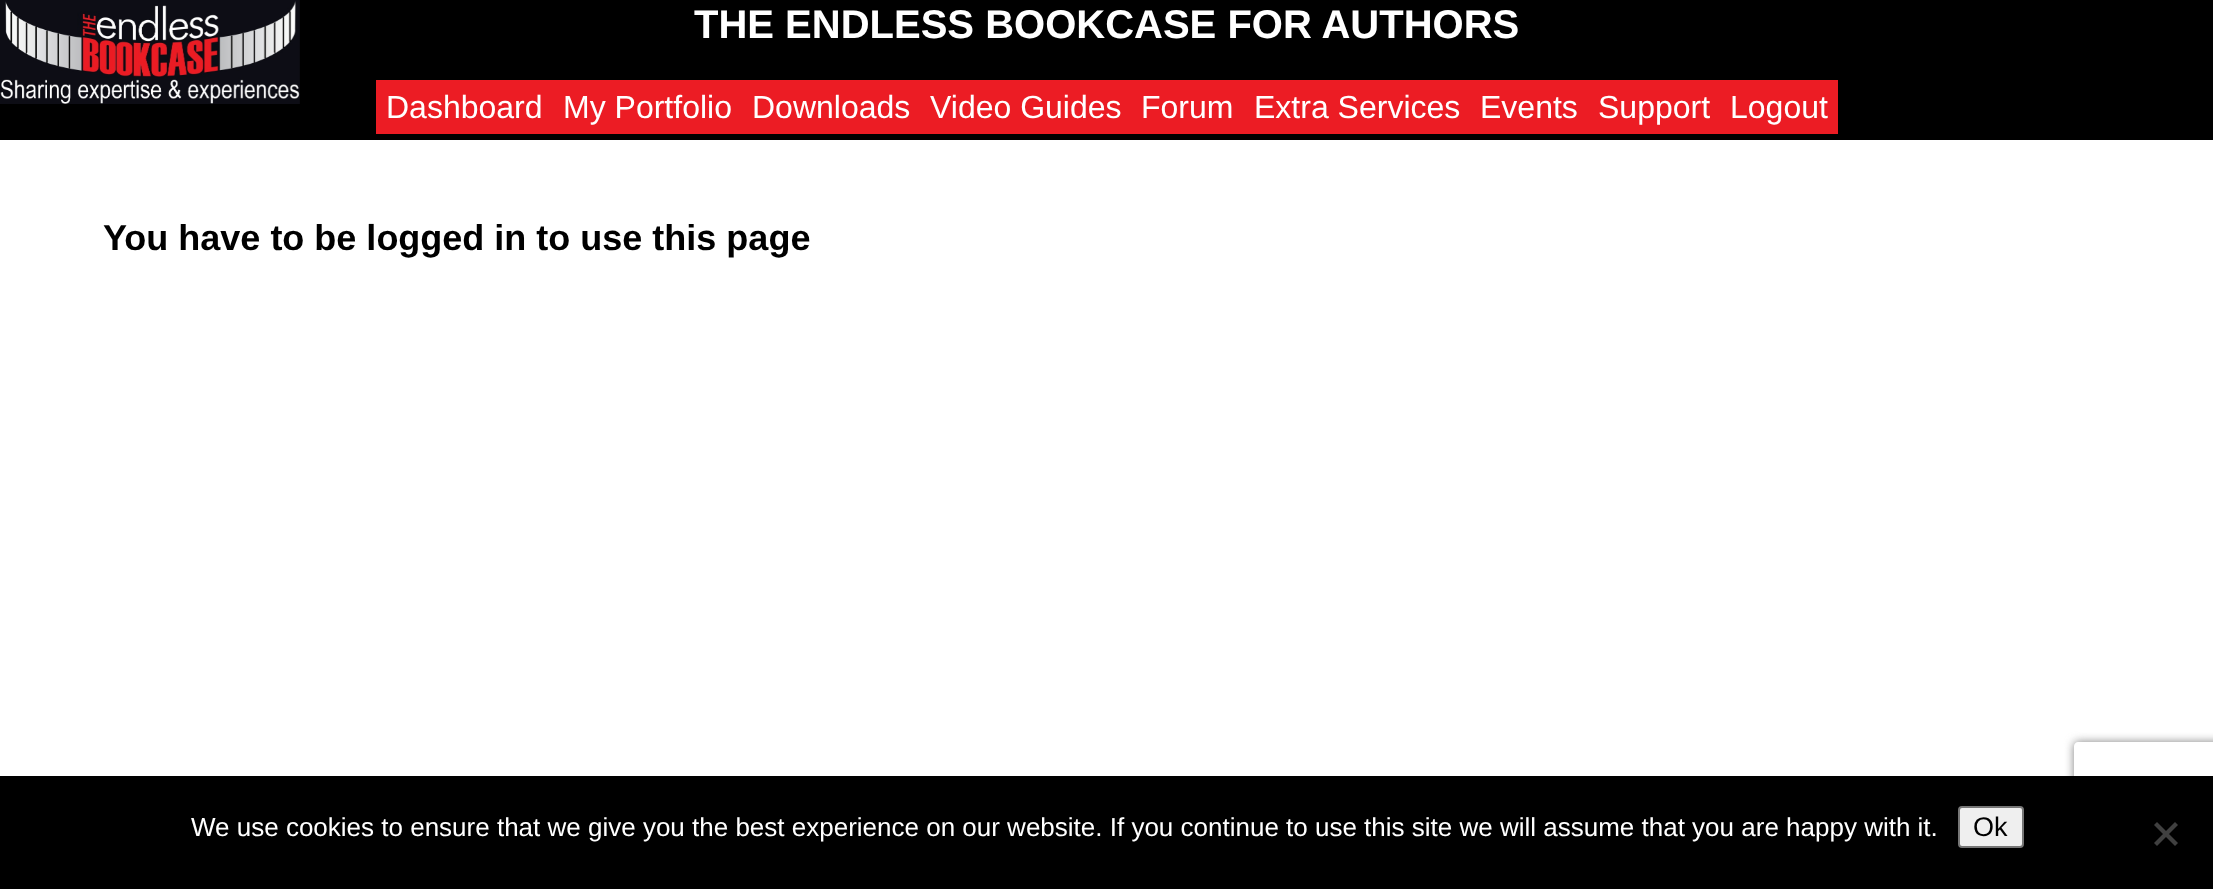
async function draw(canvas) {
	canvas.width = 2213;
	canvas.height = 889;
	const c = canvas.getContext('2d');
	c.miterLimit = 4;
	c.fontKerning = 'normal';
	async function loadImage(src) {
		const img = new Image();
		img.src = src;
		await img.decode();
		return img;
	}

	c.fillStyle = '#fff';
	c.fillRect(0, 0, 2213, 889);
	c.fillStyle = '#000';
	c.fillRect(0, 0, 2213, 140);
	c.drawImage(await loadImage('img1.png'), 0, 0, 300, 104);
	c.font = 'bold 40px Liberation Sans';
	c.fillStyle = '#fff';
	c.fillText('THE ENDLESS BOOKCASE FOR AUTHORS', 694, 38);
	c.fillStyle = '#ec1c24';
	c.fillRect(376, 80, 1462, 54);
	c.font = '32px Liberation Sans';
	c.fillStyle = '#fff';
	for (const [text, x, y] of [
		['Dashboard', 386, 118],
		['My Portfolio', 563, 118],
		['Downloads', 752, 118],
		['Video Guides', 930, 118],
		['Forum', 1141, 118],
		['Extra Services', 1254, 118],
		['Events', 1480, 118],
		['Support', 1598, 118],
		['Logout', 1730, 118],
	]) {
		c.fillText(text, x, y);
	}
	c.font = 'bold 36px Liberation Sans';
	c.fillStyle = '#000';
	c.fillText('You have to be logged in to use this page', 103, 250);
	c.save();
	c.beginPath();
	c.moveTo(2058, 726);
	c.lineTo(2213, 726);
	c.lineTo(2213, 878);
	c.lineTo(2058, 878);
	c.closePath();
	c.moveTo(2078, 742);
	c.lineTo(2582, 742);
	c.bezierCurveTo(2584, 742, 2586, 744, 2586, 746);
	c.lineTo(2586, 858);
	c.bezierCurveTo(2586, 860, 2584, 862, 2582, 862);
	c.lineTo(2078, 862);
	c.bezierCurveTo(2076, 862, 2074, 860, 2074, 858);
	c.lineTo(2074, 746);
	c.bezierCurveTo(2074, 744, 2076, 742, 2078, 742);
	c.closePath();
	c.clip('evenodd');
	c.fillStyle = '#808080';
	c.filter = 'blur(5px)';
	c.beginPath();
	c.roundRect(2074, 742, 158, 120, 4);
	c.fill();
	c.filter = 'none';
	c.restore();
	c.fillRect(0, 776, 2213, 113);
	c.font = '26px Liberation Sans';
	c.fillStyle = '#fff';
	c.fillText('We use cookies to ensure that we give you the best experience on our website. If you continue to use this site we will assume that you are happy with it.', 191, 836);
	c.fillStyle = '#efefef';
	c.beginPath();
	c.roundRect(1959, 807, 64, 40, 3);
	c.fill();
	c.strokeStyle = '#767676';
	c.lineWidth = 2;
	c.stroke();
	c.font = '27px Liberation Sans';
	c.fillStyle = '#000';
	c.fillText('Ok', 1973, 836);
	c.fillStyle = '#404040';
	c.beginPath();
	c.moveTo(2175, 822);
	c.lineTo(2178, 825);
	c.lineTo(2157, 846);
	c.lineTo(2154, 843);
	c.closePath();
	c.fill();
	c.beginPath();
	c.moveTo(2154, 825);
	c.lineTo(2157, 822);
	c.lineTo(2178, 843);
	c.lineTo(2175, 846);
	c.closePath();
	c.fill();
}

draw(document.querySelector('canvas'));
